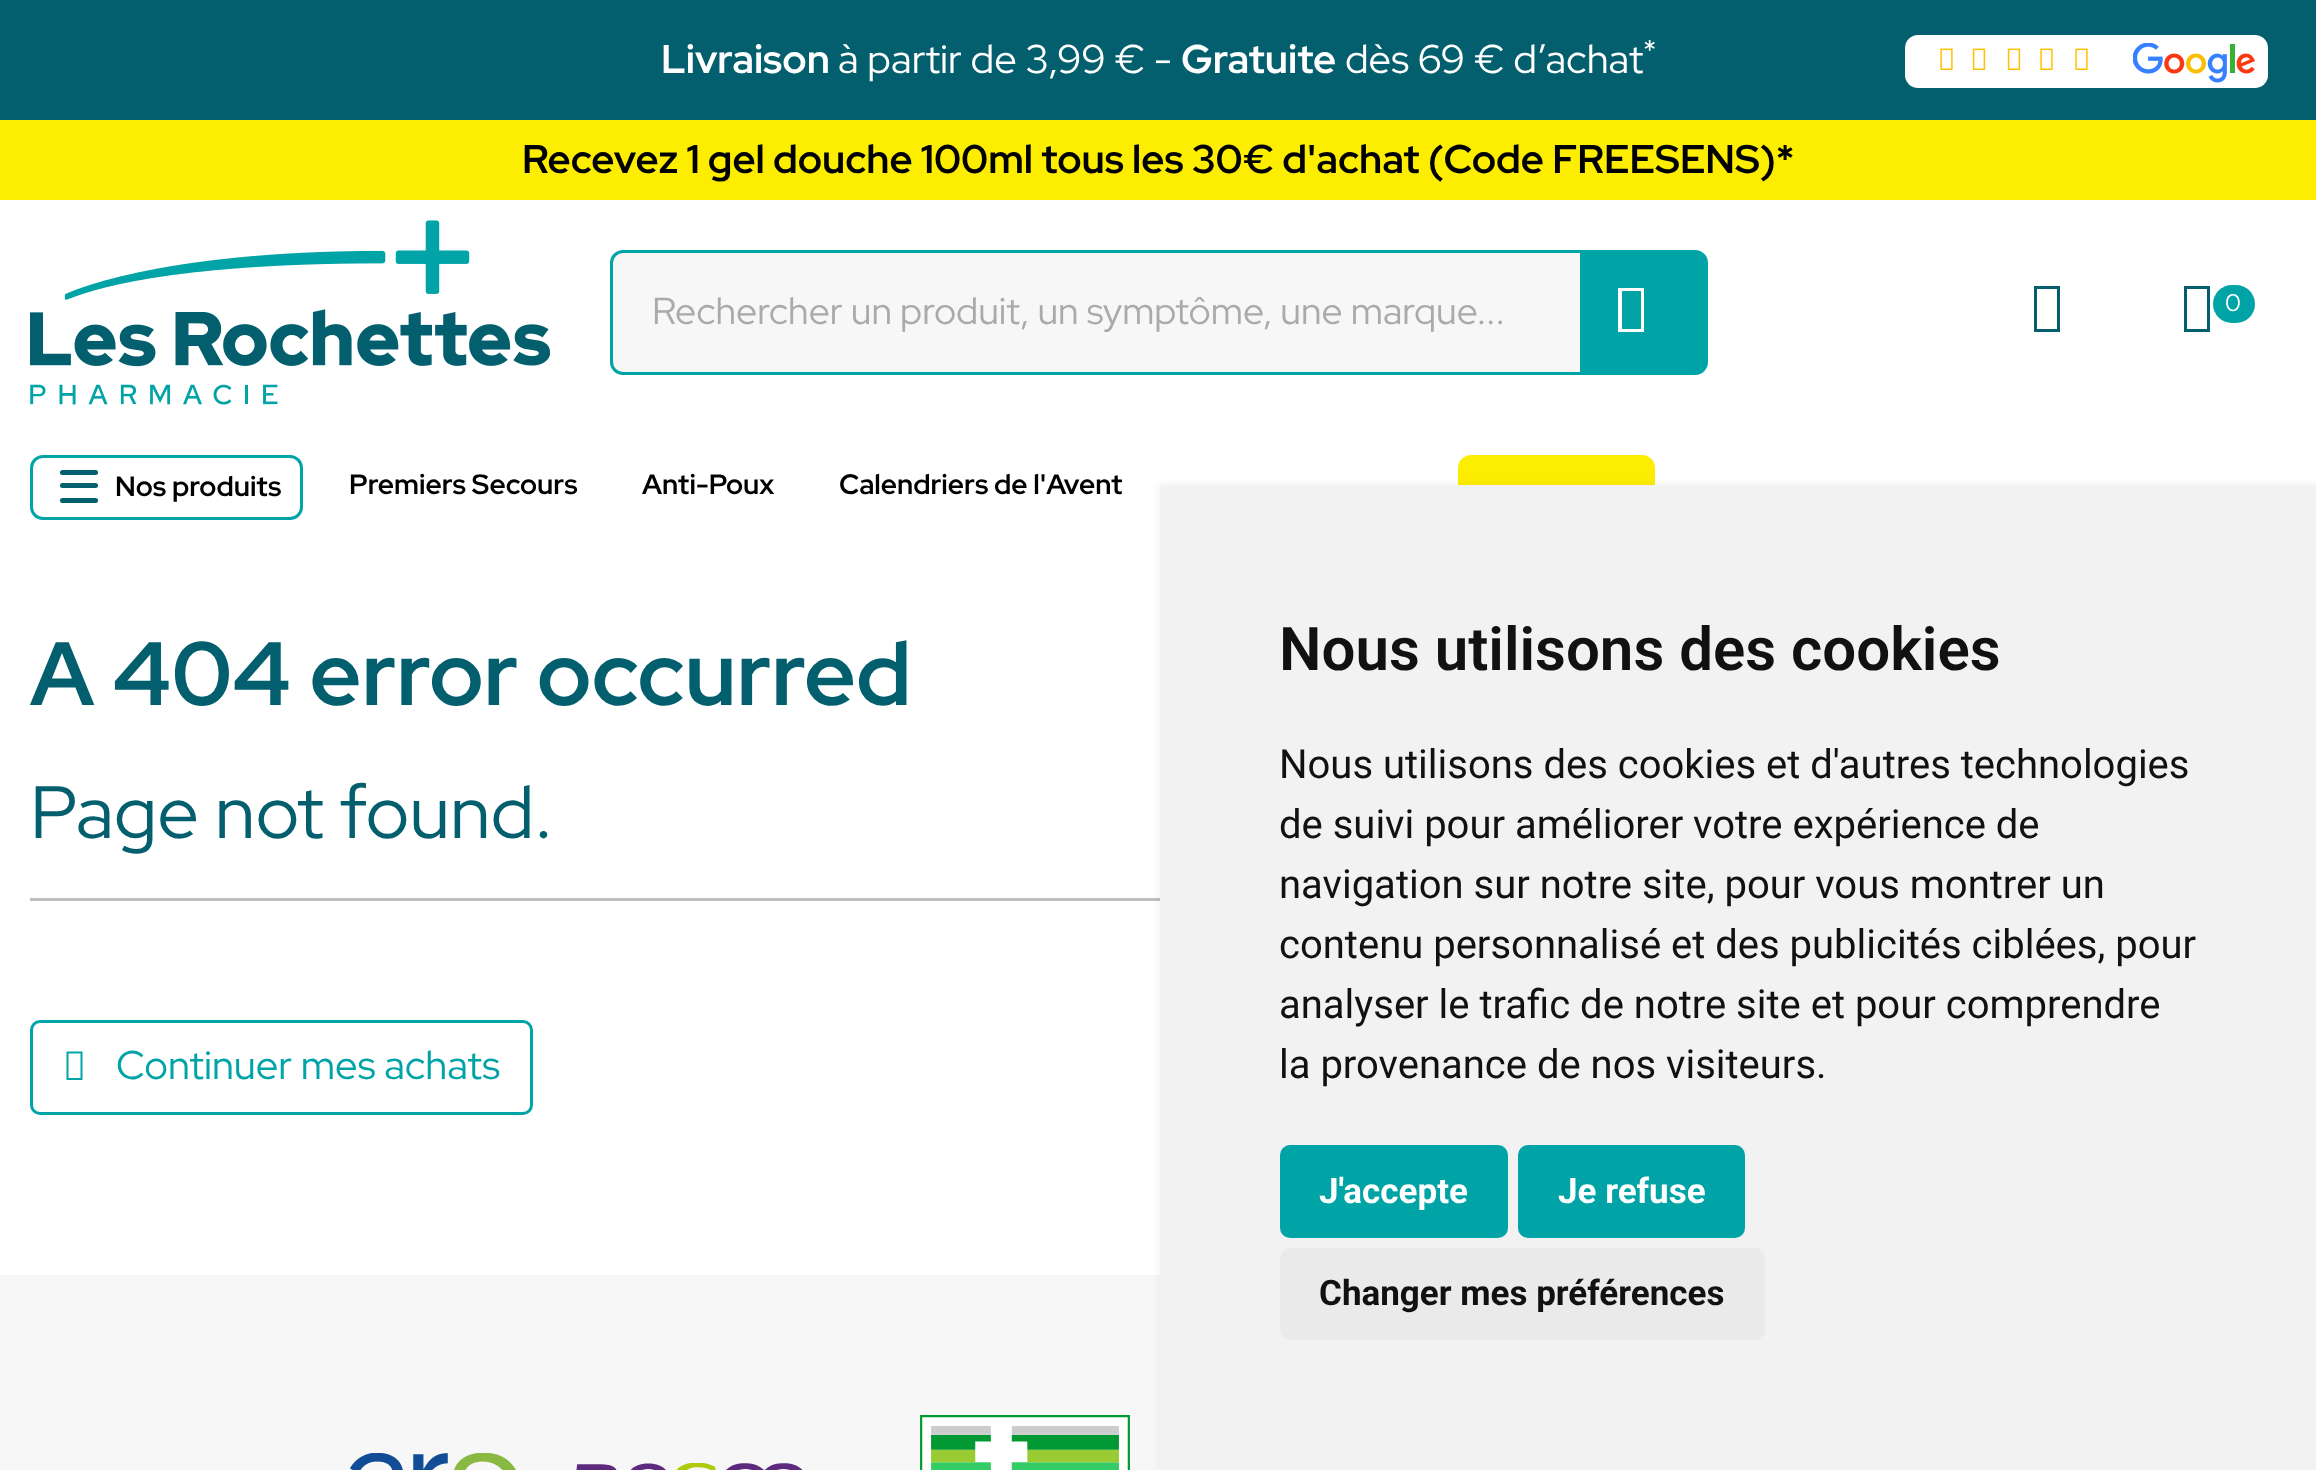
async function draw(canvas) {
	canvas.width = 2316;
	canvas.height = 1470;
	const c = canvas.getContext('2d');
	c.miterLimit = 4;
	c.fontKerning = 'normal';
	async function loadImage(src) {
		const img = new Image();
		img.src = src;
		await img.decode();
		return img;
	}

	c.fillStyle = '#fff';
	c.fillRect(0, 0, 2316, 1470);
	c.fillStyle = '#035f6d';
	c.fillRect(0, 0, 2316, 120);
	c.font = 'bold 40px Red Hat Display';
	c.fillStyle = '#fff';
	c.fillText('Livraison', 661, 73);
	c.font = '40px Red Hat Display';
	c.fillText('à partir de 3,99 € -', 838, 73);
	c.font = 'bold 40px Red Hat Display';
	c.fillText('Gratuite', 1181, 73);
	c.font = '40px Red Hat Display';
	c.fillText('dès 69 € d’achat', 1345, 73);
	c.font = '30px Red Hat Display';
	c.fillText('*', 1643, 61);
	c.beginPath();
	c.roundRect(1905, 35, 363, 53, 13);
	c.fill();
	c.drawImage(await loadImage('img1.png'), 1940, 48, 13, 22);
	c.drawImage(await loadImage('img2.png'), 1972, 48, 14, 22);
	c.drawImage(await loadImage('img2.png'), 2007, 48, 14, 22);
	c.drawImage(await loadImage('img1.png'), 2040, 48, 13, 22);
	c.drawImage(await loadImage('img1.png'), 2075, 48, 13, 22);
	c.drawImage(await loadImage('img3.png'), 2133, 43, 122, 40);
	c.fillStyle = '#fded00';
	c.fillRect(0, 120, 2316, 80);
	c.font = 'bold 40px Red Hat Display';
	c.fillStyle = '#000';
	c.fillText('Recevez 1 gel douche 100ml tous les 30€ d\'achat (Code FREESENS)*', 522, 173);
	c.drawImage(await loadImage('img4.png'), 30, 220, 520, 185);
	c.fillStyle = '#f7f7f7';
	c.beginPath();
	c.roundRect(611.5, 251.5, 970, 122, [11.5, 0, 0, 11.5]);
	c.fill();
	c.strokeStyle = '#00a3a6';
	c.lineWidth = 3;
	c.stroke();
	c.font = '37.5px Red Hat Display';
	c.fillStyle = '#aaa';
	c.fillText('Rechercher un produit, un symptôme, une marque...', 652, 324);
	c.fillStyle = '#00a3a6';
	c.beginPath();
	c.roundRect(1581.5, 251.5, 125, 122, [0, 11.5, 11.5, 0]);
	c.fill();
	c.stroke();
	c.fillStyle = '#fff';
	c.beginPath();
	c.moveTo(1618, 332);
	c.lineTo(1618, 288);
	c.lineTo(1644, 288);
	c.lineTo(1644, 332);
	c.closePath();
	c.moveTo(1622, 329);
	c.lineTo(1641, 329);
	c.lineTo(1641, 291);
	c.lineTo(1622, 291);
	c.closePath();
	c.fill();
	c.fillStyle = '#035f6d';
	c.beginPath();
	c.moveTo(2034, 332);
	c.lineTo(2034, 286);
	c.lineTo(2060, 286);
	c.lineTo(2060, 332);
	c.closePath();
	c.moveTo(2037, 329);
	c.lineTo(2057, 329);
	c.lineTo(2057, 289);
	c.lineTo(2037, 289);
	c.closePath();
	c.fill();
	c.beginPath();
	c.moveTo(2184, 332);
	c.lineTo(2184, 286);
	c.lineTo(2210, 286);
	c.lineTo(2210, 332);
	c.closePath();
	c.moveTo(2187, 329);
	c.lineTo(2207, 329);
	c.lineTo(2207, 289);
	c.lineTo(2187, 289);
	c.closePath();
	c.fill();
	c.fillStyle = '#00a3a6';
	c.beginPath();
	c.roundRect(2213, 285, 42, 38, 19);
	c.fill();
	c.font = '24px Red Hat Display';
	c.fillStyle = '#fff';
	c.fillText('0', 2225, 311);
	c.beginPath();
	c.roundRect(31.5, 456.5, 270, 62, 11.5);
	c.stroke();
	c.fillStyle = '#035f6d';
	c.beginPath();
	c.roundRect(60, 470, 38, 5, 2.5);
	c.fill();
	c.beginPath();
	c.roundRect(60, 483, 38, 5, 2.5);
	c.fill();
	c.beginPath();
	c.roundRect(60, 498, 38, 5, 2.5);
	c.fill();
	c.font = 'bold 28px Red Hat Display';
	c.fillStyle = '#000';
	for (const [text, x, y] of [
		['Nos produits', 115, 496],
		['Premiers Secours', 349, 494],
		['Anti-Poux', 642, 494],
		['Calendriers de l\'Avent', 839, 494],
	]) {
		c.fillText(text, x, y);
	}
	c.fillStyle = '#fded00';
	c.beginPath();
	c.roundRect(1459.5, 456.5, 194, 62, 11.5);
	c.fill();
	c.strokeStyle = '#fded00';
	c.stroke();
	c.font = 'bold 89.75px Red Hat Display';
	c.fillStyle = '#035f6d';
	c.fillText('A 404 error occurred', 30, 705);
	c.font = '74px Red Hat Display';
	c.fillText('Page not found.', 30, 838);
	c.fillStyle = '#bfbfbf';
	c.fillRect(30, 898, 1130, 3);
	c.beginPath();
	c.roundRect(31.5, 1021.5, 500, 92, 8.5);
	c.strokeStyle = '#00a3a6';
	c.stroke();
	c.fillStyle = '#00a3a6';
	c.beginPath();
	c.moveTo(66.5, 1080);
	c.lineTo(66.5, 1051.5);
	c.lineTo(82.5, 1051.5);
	c.lineTo(82.5, 1080);
	c.closePath();
	c.moveTo(68.5, 1078);
	c.lineTo(80.5, 1078);
	c.lineTo(80.5, 1053.5);
	c.lineTo(68.5, 1053.5);
	c.closePath();
	c.fill();
	c.font = '40px Red Hat Display';
	c.fillText('Continuer mes achats', 116, 1079);
	c.fillStyle = '#f7f7f7';
	c.fillRect(0, 1275, 1160, 195);
	c.fillStyle = '#00000012';
	c.filter = 'blur(5px)';
	c.beginPath();
	c.rect(1160, 485, 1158, 985);
	c.fill();
	c.filter = 'none';
	c.fillStyle = '#f2f2f2';
	c.fillRect(1160, 485, 1156, 985);
	c.font = '600 60px Roboto';
	c.fillStyle = '#111';
	c.fillText('Nous utilisons des cookies', 1279, 670);
	c.font = '40px Roboto';
	for (const [text, x, y] of [
		['Nous utilisons des cookies et d\'autres technologies', 1279, 778],
		['de suivi pour améliorer votre expérience de', 1279, 838],
		['navigation sur notre site, pour vous montrer un', 1279, 898],
		['contenu personnalisé et des publicités ciblées, pour', 1279, 958],
		['analyser le trafic de notre site et pour comprendre', 1279, 1018],
		['la provenance de nos visiteurs.', 1279, 1078],
	]) {
		c.fillText(text, x, y);
	}
	c.fillStyle = '#00a3a6';
	c.beginPath();
	c.roundRect(1280, 1145, 228, 93, 10);
	c.fill();
	c.font = 'bold 35px Roboto';
	c.fillStyle = '#fff';
	c.fillText('J\'accepte', 1319, 1203);
	c.fillStyle = '#00a3a6';
	c.beginPath();
	c.roundRect(1518, 1145, 227, 93, 10);
	c.fill();
	c.fillStyle = '#fff';
	c.fillText('Je refuse', 1558, 1203);
	c.fillStyle = '#eaeaea';
	c.beginPath();
	c.roundRect(1280, 1248, 485, 92, 10);
	c.fill();
	c.fillStyle = '#111';
	c.fillText('Changer mes préférences', 1319, 1305);
	c.drawImage(await loadImage('img5.png'), 350, 1453, 166, 17);
	c.drawImage(await loadImage('img6.png'), 576, 1463, 227, 7);
	c.drawImage(await loadImage('img7.png'), 920, 1415, 210, 55);
}

draw(document.querySelector('canvas'));
